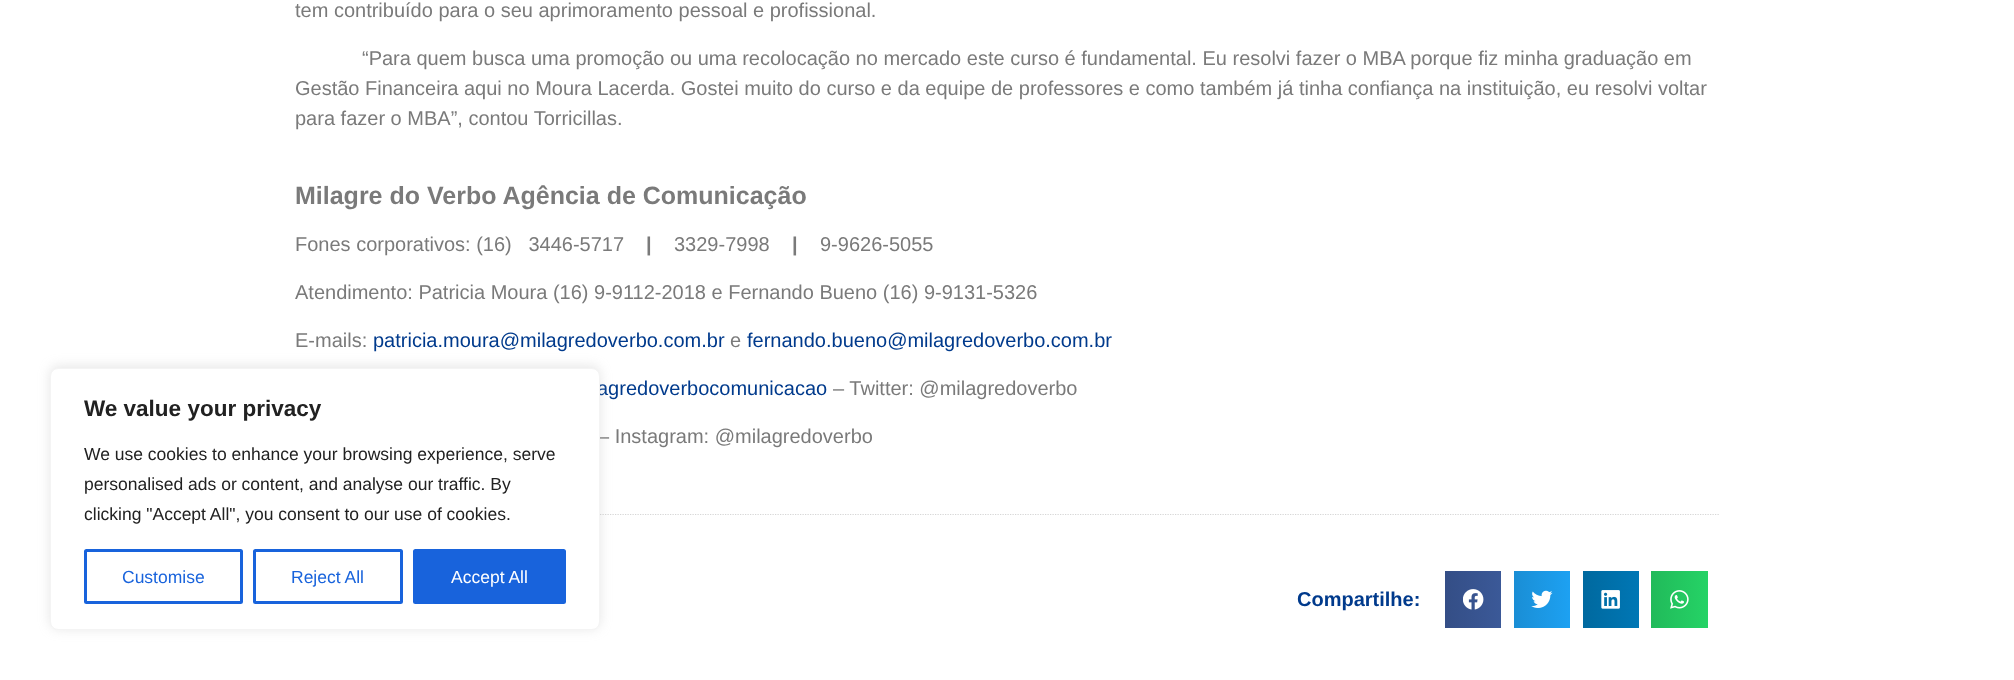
async function draw(canvas) {
	canvas.width = 2014;
	canvas.height = 680;
	const c = canvas.getContext('2d');
	c.miterLimit = 4;
	c.fontKerning = 'normal';
	async function loadImage(src) {
		const img = new Image();
		img.src = src;
		await img.decode();
		return img;
	}
	let gradient;

	c.fillStyle = '#fff';
	c.fillRect(0, 0, 2014, 680);
	c.font = '20px Liberation Sans';
	c.fillStyle = '#7a7a7a';
	for (const [text, x, y] of [
		['tem contribuído para o seu aprimoramento pessoal e profissional.', 295, 17],
		['“Para quem busca uma promoção ou uma recolocação no mercado este curso é fundamental. Eu resolvi fazer o MBA porque fiz minha graduação em', 362, 65],
		['Gestão Financeira aqui no Moura Lacerda. Gostei muito do curso e da equipe de professores e como também já tinha confiança na instituição, eu resolvi voltar', 295, 95],
		['para fazer o MBA”, contou Torricillas.', 295, 125],
	]) {
		c.fillText(text, x, y);
	}
	c.font = 'bold 25px Liberation Sans';
	c.fillText('Milagre do Verbo Agência de Comunicação', 295, 204);
	c.font = '20px Liberation Sans';
	c.fillText('Fones corporativos: (16)   3446-5717', 295, 251);
	c.font = 'bold 20px Liberation Sans';
	c.fillText('|', 646, 251);
	c.font = '20px Liberation Sans';
	c.fillText('3329-7998', 674, 251);
	c.font = 'bold 20px Liberation Sans';
	c.fillText('|', 792, 251);
	c.font = '20px Liberation Sans';
	for (const [text, x, y] of [
		['9-9626-5055', 820, 251],
		['Atendimento: Patricia Moura (16) 9-9112-2018 e Fernando Bueno (16) 9-9131-5326', 295, 299],
		['E-mails:', 295, 347],
	]) {
		c.fillText(text, x, y);
	}
	c.fillStyle = '#003a8c';
	c.fillText('patricia.moura@milagredoverbo.com.br', 373, 347);
	c.fillStyle = '#7a7a7a';
	c.fillText('e', 730, 347);
	c.fillStyle = '#003a8c';
	c.fillText('fernando.bueno@milagredoverbo.com.br', 747, 347);
	c.fillText('agredoverbocomunicacao', 597, 395);
	c.fillStyle = '#7a7a7a';
	c.fillText('– Twitter: @milagredoverbo', 833, 395);
	c.fillText('– Instagram: @milagredoverbo', 598, 443);
	c.beginPath();
	c.moveTo(295, 514.5);
	c.lineTo(1720, 514.5);
	c.strokeStyle = '#d6d6d6';
	c.lineWidth = 1.2;
	c.setLineDash([1.25, 1.25]);
	c.stroke();
	c.font = 'bold 20px Liberation Sans';
	c.fillStyle = '#003a8c';
	c.fillText('Compartilhe:', 1297, 606);
	gradient = c.createLinearGradient(1445, 599, 1501, 599);
	gradient.addColorStop(0, '#344e86');
	gradient.addColorStop(1, '#3b5998');
	c.fillStyle = gradient;
	c.fillRect(1445, 571, 56, 57);
	c.drawImage(await loadImage('img1.png'), 1463, 589, 21, 21);
	gradient = c.createLinearGradient(1514, 599, 1570, 599);
	gradient.addColorStop(0, '#1a8ed5');
	gradient.addColorStop(1, '#1da1f2');
	c.fillStyle = gradient;
	c.fillRect(1514, 571, 56, 57);
	c.drawImage(await loadImage('img2.png'), 1531, 590, 22, 18);
	gradient = c.createLinearGradient(1583, 599, 1639, 599);
	gradient.addColorStop(0, '#00699f');
	gradient.addColorStop(1, '#0077b5');
	c.fillStyle = gradient;
	c.fillRect(1583, 571, 56, 57);
	c.drawImage(await loadImage('img3.png'), 1601, 590, 19, 19);
	gradient = c.createLinearGradient(1651, 599, 1708, 599);
	gradient.addColorStop(0, '#21ba5a');
	gradient.addColorStop(1, '#25d366');
	c.fillStyle = gradient;
	c.fillRect(1651, 571, 57, 57);
	c.drawImage(await loadImage('img4.png'), 1670, 590, 19, 19);
	c.fillStyle = '#acabab4d';
	c.filter = 'blur(6px)';
	c.beginPath();
	c.roundRect(50, 366, 550, 263, 8);
	c.fill();
	c.filter = 'none';
	c.fillStyle = '#fff';
	c.beginPath();
	c.roundRect(50.5, 368.5, 549, 261, 7.5);
	c.fill();
	c.strokeStyle = '#f4f4f4';
	c.lineWidth = 1;
	c.setLineDash([]);
	c.stroke();
	c.font = 'bold 22.5px Liberation Sans';
	c.fillStyle = '#212121';
	c.fillText('We value your privacy', 84, 416);
	c.font = '17.5px Liberation Sans';
	for (const [text, x, y] of [
		['We use cookies to enhance your browsing experience, serve', 84, 460],
		['personalised ads or content, and analyse our traffic. By', 84, 490],
		['clicking "Accept All", you consent to our use of cookies.', 84, 520],
	]) {
		c.fillText(text, x, y);
	}
	c.beginPath();
	c.roundRect(85.5, 550.5, 156, 52, 1);
	c.strokeStyle = '#1863dc';
	c.lineWidth = 3;
	c.stroke();
	c.fillStyle = '#1863dc';
	c.fillText('Customise', 122, 583);
	c.beginPath();
	c.roundRect(254.5, 550.5, 147, 52, 1);
	c.stroke();
	c.fillText('Reject All', 291, 583);
	c.beginPath();
	c.roundRect(414.5, 550.5, 150, 52, 1);
	c.fill();
	c.stroke();
	c.fillStyle = '#fff';
	c.fillText('Accept All', 451, 583);
}

draw(document.querySelector('canvas'));
